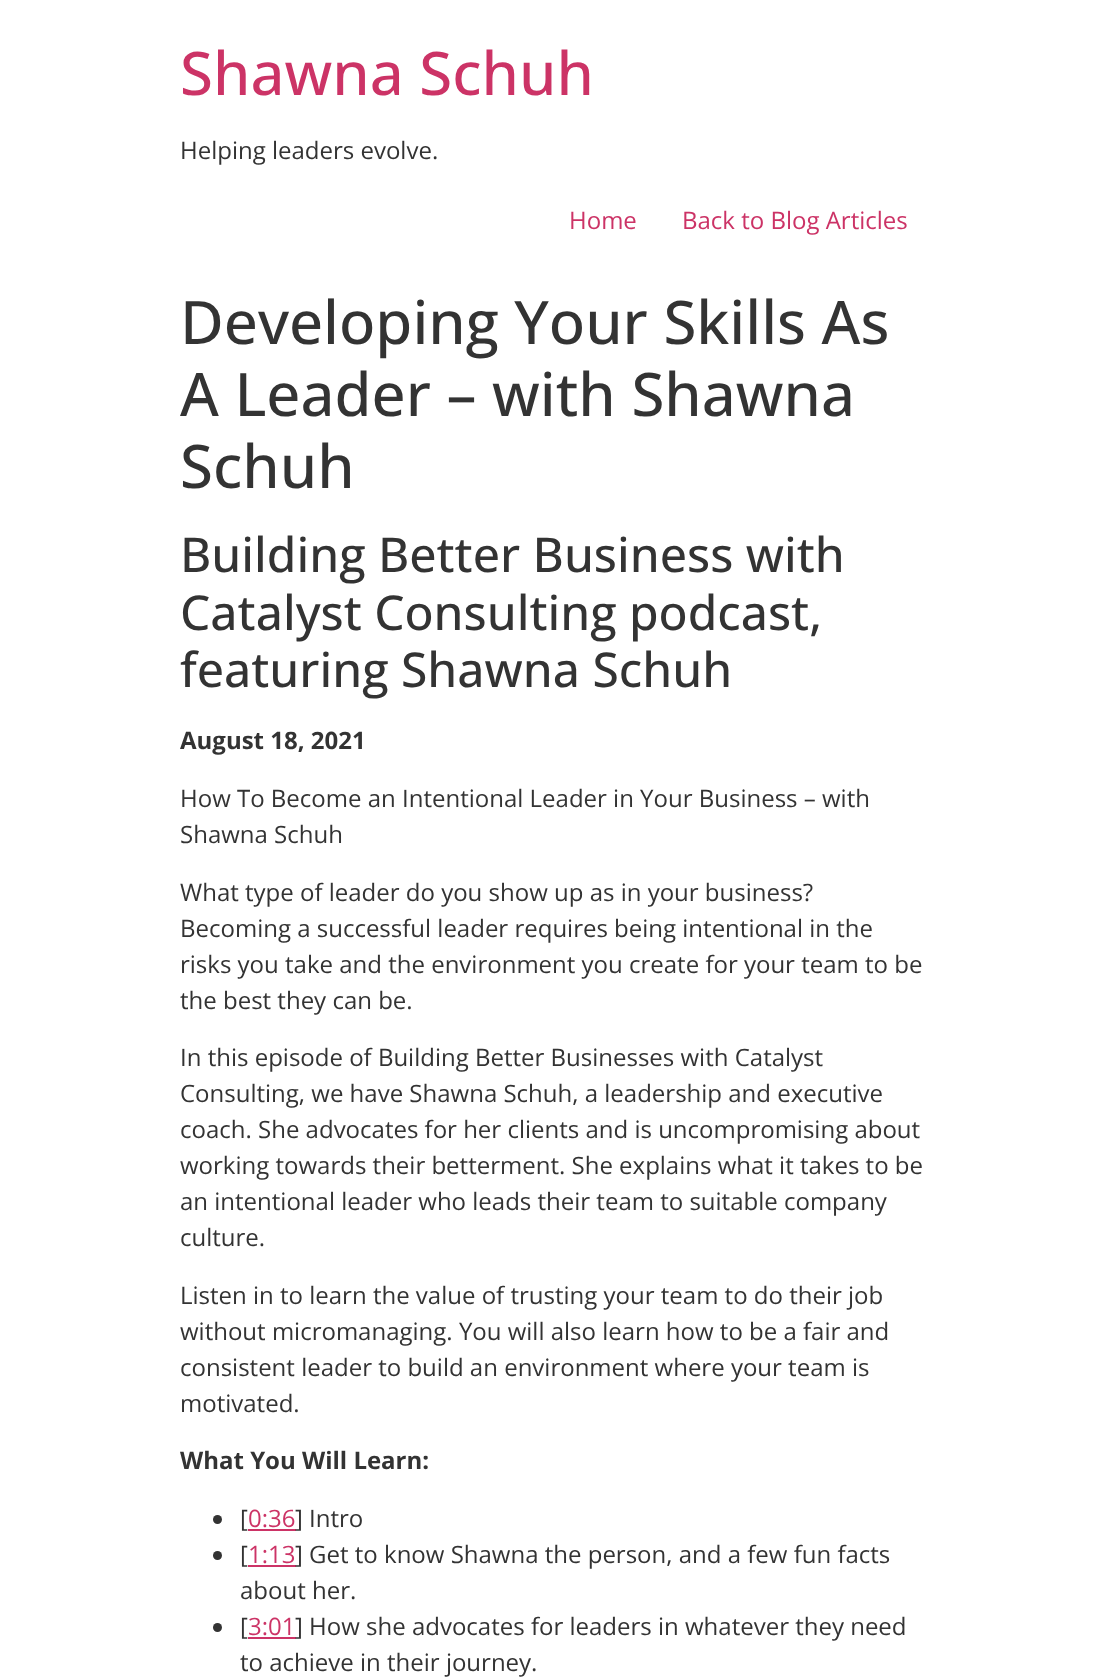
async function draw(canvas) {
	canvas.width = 1110;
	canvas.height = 1680;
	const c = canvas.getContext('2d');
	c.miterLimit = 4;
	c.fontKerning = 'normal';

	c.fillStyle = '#fff';
	c.fillRect(0, 0, 1110, 1680);
	c.font = '500 60px Open Sans';
	c.fillStyle = '#c36';
	c.fillText('Shawna Schuh', 180, 95);
	c.font = '24px Open Sans';
	c.fillStyle = '#333';
	c.fillText('Helping leaders evolve.', 180, 159);
	c.fillStyle = '#c36';
	c.fillText('Home', 569, 229);
	c.fillText('Back to Blog Articles', 682, 229);
	c.font = '500 60px Open Sans';
	c.fillStyle = '#333';
	for (const [text, x, y] of [
		['Developing Your Skills As', 180, 344],
		['A Leader – with Shawna', 180, 416],
		['Schuh', 180, 488],
	]) {
		c.fillText(text, x, y);
	}
	c.font = '500 48px Open Sans';
	for (const [text, x, y] of [
		['Building Better Business with', 180, 572],
		['Catalyst Consulting podcast,', 180, 630],
		['featuring Shawna Schuh', 180, 687],
	]) {
		c.fillText(text, x, y);
	}
	c.font = 'bold 24px Open Sans';
	c.fillText('August 18, 2021', 180, 749);
	c.font = '24px Open Sans';
	for (const [text, x, y] of [
		['How To Become an Intentional Leader in Your Business – with', 180, 807],
		['Shawna Schuh', 180, 843],
		['What type of leader do you show up as in your business?', 180, 901],
		['Becoming a successful leader requires being intentional in the', 180, 937],
		['risks you take and the environment you create for your team to be', 180, 973],
		['the best they can be.', 180, 1009],
		['In this episode of Building Better Businesses with Catalyst', 180, 1066],
		['Consulting, we have Shawna Schuh, a leadership and executive', 180, 1102],
		['coach. She advocates for her clients and is uncompromising about', 180, 1138],
		['working towards their betterment. She explains what it takes to be', 180, 1174],
		['an intentional leader who leads their team to suitable company', 180, 1210],
		['culture.', 180, 1246],
		['Listen in to learn the value of trusting your team to do their job', 180, 1304],
		['without micromanaging. You will also learn how to be a fair and', 180, 1340],
		['consistent leader to build an environment where your team is', 180, 1376],
		['motivated.', 180, 1412],
	]) {
		c.fillText(text, x, y);
	}
	c.font = 'bold 24px Open Sans';
	c.fillText('What You Will Learn:', 180, 1469);
	c.beginPath();
	c.arc(217.5, 1519.5, 4.5, 0, 2 * Math.PI);
	c.fill();
	c.font = '24px Open Sans';
	c.fillText('[', 240, 1527);
	c.fillStyle = '#c36';
	c.fillText('0:36', 248, 1527);
	c.fillRect(248, 1529, 48, 2);
	c.fillStyle = '#333';
	c.fillText('] Intro', 295, 1527);
	c.beginPath();
	c.arc(217.5, 1555.5, 4.5, 0, 2 * Math.PI);
	c.fill();
	c.fillText('[', 240, 1563);
	c.fillStyle = '#c36';
	c.fillText('1:13', 248, 1563);
	c.fillRect(248, 1565, 48, 2);
	c.fillStyle = '#333';
	c.fillText('] Get to know Shawna the person, and a few fun facts', 295, 1563);
	c.fillText('about her.', 240, 1599);
	c.beginPath();
	c.arc(217.5, 1627.5, 4.5, 0, 2 * Math.PI);
	c.fill();
	c.fillText('[', 240, 1635);
	c.fillStyle = '#c36';
	c.fillText('3:01', 248, 1635);
	c.fillRect(248, 1637, 48, 2);
	c.fillStyle = '#333';
	c.fillText('] How she advocates for leaders in whatever they need', 295, 1635);
	c.fillText('to achieve in their journey.', 240, 1671);
}

draw(document.querySelector('canvas'));
